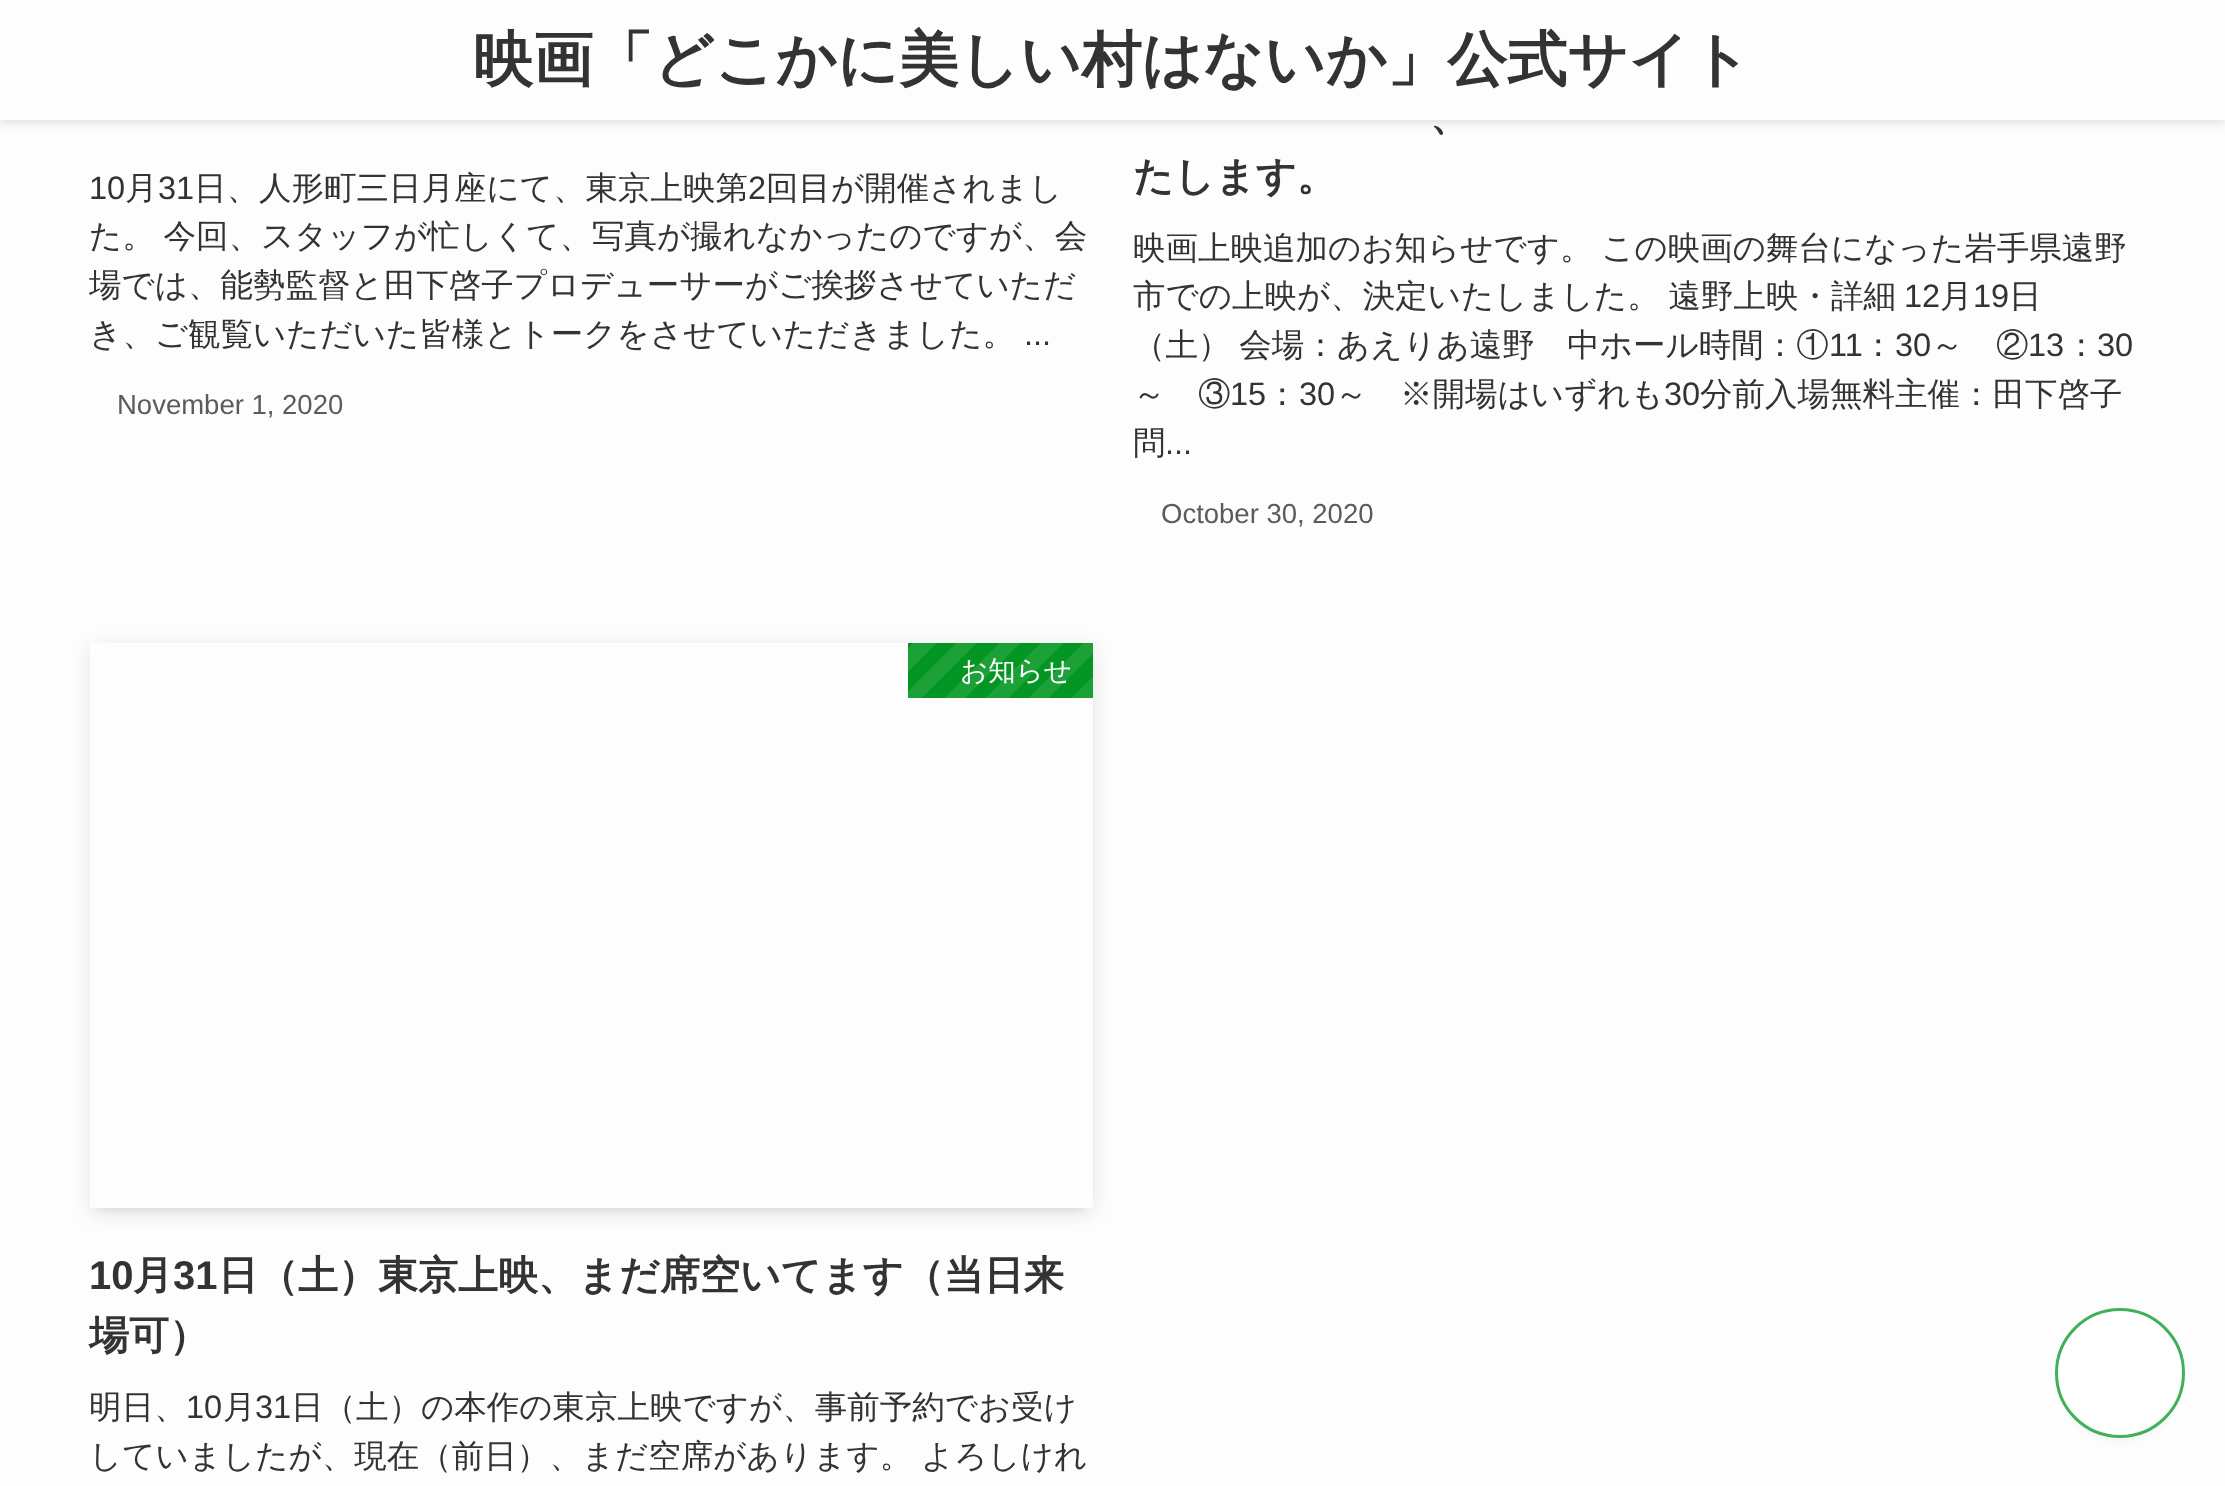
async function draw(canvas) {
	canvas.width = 2225;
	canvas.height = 1486;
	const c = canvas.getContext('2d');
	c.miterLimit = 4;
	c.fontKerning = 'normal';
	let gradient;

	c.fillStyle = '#fdfdfd';
	c.fillRect(0, 0, 2225, 1486);
	c.fillStyle = '#0000001f';
	c.filter = 'blur(5px)';
	c.beginPath();
	c.rect(0, 3, 2225, 120);
	c.fill();
	c.filter = 'none';
	c.fillStyle = '#fdfdfd';
	c.fillRect(0, 0, 2225, 120);
	c.font = 'bold 60px WenQuanYi Zen Hei';
	c.fillStyle = '#333';
	c.fillText('映画「どこかに美しい村はないか」公式サイト', 473, 80);
	c.font = '32.5px Liberation Sans';
	c.fillText('10', 89, 199);
	c.font = '500 32.5px WenQuanYi Zen Hei';
	c.fillText('月', 125, 199);
	c.font = '32.5px Liberation Sans';
	c.fillText('31', 158, 199);
	c.font = '500 32.5px WenQuanYi Zen Hei';
	c.fillText('日、人形町三日月座にて、東京上映第', 194, 199);
	c.font = '32.5px Liberation Sans';
	c.fillText('2', 748, 199);
	c.font = '500 32.5px WenQuanYi Zen Hei';
	c.fillText('回目が開催されまし', 766, 199);
	c.wordSpacing = '-1px';
	c.fillText('た。 今回、スタッフが忙しくて、写真が撮れなかったのですが、会', 89, 247);
	c.wordSpacing = '0px';
	c.fillText('場では、能勢監督と田下啓子プロデューサーがご挨拶させていただ', 89, 296);
	c.fillText('き、ご観覧いただいた皆様とトークをさせていただきました。', 89, 345);
	c.font = '32.5px Liberation Sans';
	c.fillText('...', 1024, 345);
	c.font = '27.5px Liberation Sans';
	c.fillStyle = '#5b5b5b';
	c.fillText('November 1, 2020', 117, 414);
	c.font = 'bold 40px WenQuanYi Zen Hei';
	c.fillStyle = '#333';
	c.fillText('、', 1430, 130);
	c.fillText('たします。', 1133, 190);
	c.wordSpacing = '-1px';
	c.font = '500 32.5px WenQuanYi Zen Hei';
	c.fillText('映画上映追加のお知らせです。 この映画の舞台になった岩手県遠野', 1133, 259);
	c.fillText('市での上映が、決定いたしました。 遠野上映・詳細', 1133, 307);
	c.wordSpacing = '0px';
	c.font = '32.5px Liberation Sans';
	c.fillText('12', 1904, 307);
	c.font = '500 32.5px WenQuanYi Zen Hei';
	c.fillText('月', 1940, 307);
	c.font = '32.5px Liberation Sans';
	c.fillText('19', 1973, 307);
	c.font = '500 32.5px WenQuanYi Zen Hei';
	c.fillText('日', 2009, 307);
	c.wordSpacing = '-1px';
	c.fillText('（土） 会場：あえりあ遠野　中ホール時間：①', 1133, 356);
	c.wordSpacing = '0px';
	c.font = '32.5px Liberation Sans';
	c.fillText('11', 1829, 356);
	c.font = '500 32.5px WenQuanYi Zen Hei';
	c.fillText('：', 1862, 356);
	c.font = '32.5px Liberation Sans';
	c.fillText('30', 1895, 356);
	c.font = '500 32.5px WenQuanYi Zen Hei';
	c.fillText('～　②', 1931, 356);
	c.font = '32.5px Liberation Sans';
	c.fillText('13', 2028, 356);
	c.font = '500 32.5px WenQuanYi Zen Hei';
	c.fillText('：', 2065, 356);
	c.font = '32.5px Liberation Sans';
	c.fillText('30', 2097, 356);
	c.font = '500 32.5px WenQuanYi Zen Hei';
	c.fillText('～　③', 1133, 405);
	c.font = '32.5px Liberation Sans';
	c.fillText('15', 1230, 405);
	c.font = '500 32.5px WenQuanYi Zen Hei';
	c.fillText('：', 1266, 405);
	c.font = '32.5px Liberation Sans';
	c.fillText('30', 1299, 405);
	c.font = '500 32.5px WenQuanYi Zen Hei';
	c.fillText('～　※開場はいずれも', 1335, 405);
	c.font = '32.5px Liberation Sans';
	c.fillText('30', 1664, 405);
	c.font = '500 32.5px WenQuanYi Zen Hei';
	c.fillText('分前入場無料主催：田下啓子', 1700, 405);
	c.fillText('問', 1133, 454);
	c.font = '32.5px Liberation Sans';
	c.fillText('...', 1165, 454);
	c.font = '27.5px Liberation Sans';
	c.fillStyle = '#5b5b5b';
	c.fillText('October 30, 2020', 1161, 523);
	c.save();
	c.beginPath();
	c.moveTo(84, 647);
	c.lineTo(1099, 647);
	c.lineTo(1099, 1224);
	c.lineTo(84, 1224);
	c.closePath();
	c.moveTo(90, 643);
	c.lineTo(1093, 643);
	c.lineTo(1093, 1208);
	c.lineTo(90, 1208);
	c.closePath();
	c.clip('evenodd');
	c.fillStyle = '#0000001a';
	c.filter = 'blur(5px)';
	c.beginPath();
	c.rect(100, 663, 983, 545);
	c.fill();
	c.filter = 'none';
	c.restore();
	c.save();
	c.beginPath();
	c.moveTo(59, 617);
	c.lineTo(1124, 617);
	c.lineTo(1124, 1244);
	c.lineTo(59, 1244);
	c.closePath();
	c.moveTo(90, 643);
	c.lineTo(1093, 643);
	c.lineTo(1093, 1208);
	c.lineTo(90, 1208);
	c.closePath();
	c.clip('evenodd');
	c.fillStyle = '#0000001a';
	c.filter = 'blur(10px)';
	c.beginPath();
	c.rect(90, 648, 1003, 565);
	c.fill();
	c.filter = 'none';
	c.restore();
	gradient = c.createLinearGradient(1060, 730, 933, 603);
	gradient.addColorStop(0, '#1ca138');
	gradient.addColorStop(0.08, '#1ca138');
	gradient.addColorStop(0.08, '#039622');
	gradient.addColorStop(0.17, '#039622');
	gradient.addColorStop(0.17, '#1ca138');
	gradient.addColorStop(0.25, '#1ca138');
	gradient.addColorStop(0.25, '#039622');
	gradient.addColorStop(0.33, '#039622');
	gradient.addColorStop(0.33, '#1ca138');
	gradient.addColorStop(0.42, '#1ca138');
	gradient.addColorStop(0.42, '#039622');
	gradient.addColorStop(0.5, '#039622');
	gradient.addColorStop(0.5, '#1ca138');
	gradient.addColorStop(0.58, '#1ca138');
	gradient.addColorStop(0.58, '#039622');
	gradient.addColorStop(0.67, '#039622');
	gradient.addColorStop(0.67, '#1ca138');
	gradient.addColorStop(0.75, '#1ca138');
	gradient.addColorStop(0.75, '#039622');
	gradient.addColorStop(0.83, '#039622');
	gradient.addColorStop(0.83, '#1ca138');
	gradient.addColorStop(0.92, '#1ca138');
	gradient.addColorStop(0.92, '#039622');
	gradient.addColorStop(1, '#039622');
	c.fillStyle = gradient;
	c.fillRect(908, 643, 185, 55);
	c.font = '500 27.5px WenQuanYi Zen Hei';
	c.fillStyle = '#fff';
	c.fillText('お知らせ', 960, 680);
	c.font = 'bold 40px Liberation Sans';
	c.fillStyle = '#333';
	c.fillText('10', 89, 1289);
	c.font = 'bold 40px WenQuanYi Zen Hei';
	c.fillText('月', 133, 1289);
	c.font = 'bold 40px Liberation Sans';
	c.fillText('31', 173, 1289);
	c.font = 'bold 40px WenQuanYi Zen Hei';
	c.fillText('日（土）東京上映、まだ席空いてます（当日来', 218, 1289);
	c.fillText('場可）', 89, 1349);
	c.font = '500 32.5px WenQuanYi Zen Hei';
	c.fillText('明日、', 89, 1418);
	c.font = '32.5px Liberation Sans';
	c.fillText('10', 186, 1418);
	c.font = '500 32.5px WenQuanYi Zen Hei';
	c.fillText('月', 223, 1418);
	c.font = '32.5px Liberation Sans';
	c.fillText('31', 255, 1418);
	c.font = '500 32.5px WenQuanYi Zen Hei';
	c.fillText('日（土）の本作の東京上映ですが、事前予約でお受け', 291, 1418);
	c.wordSpacing = '-1px';
	c.fillText('していましたが、現在（前日）、まだ空席があります。 よろしけれ', 89, 1467);
	c.fillStyle = '#3f3f3f1a';
	c.filter = 'blur(5px)';
	c.beginPath();
	c.roundRect(2065, 1328, 110, 110, 55);
	c.fill();
	c.filter = 'none';
	c.fillStyle = '#fff';
	c.beginPath();
	c.arc(2120, 1373, 63.5, 0, 2 * Math.PI);
	c.fill();
	c.strokeStyle = '#42b059';
	c.lineWidth = 3;
	c.stroke();
}

draw(document.querySelector('canvas'));
